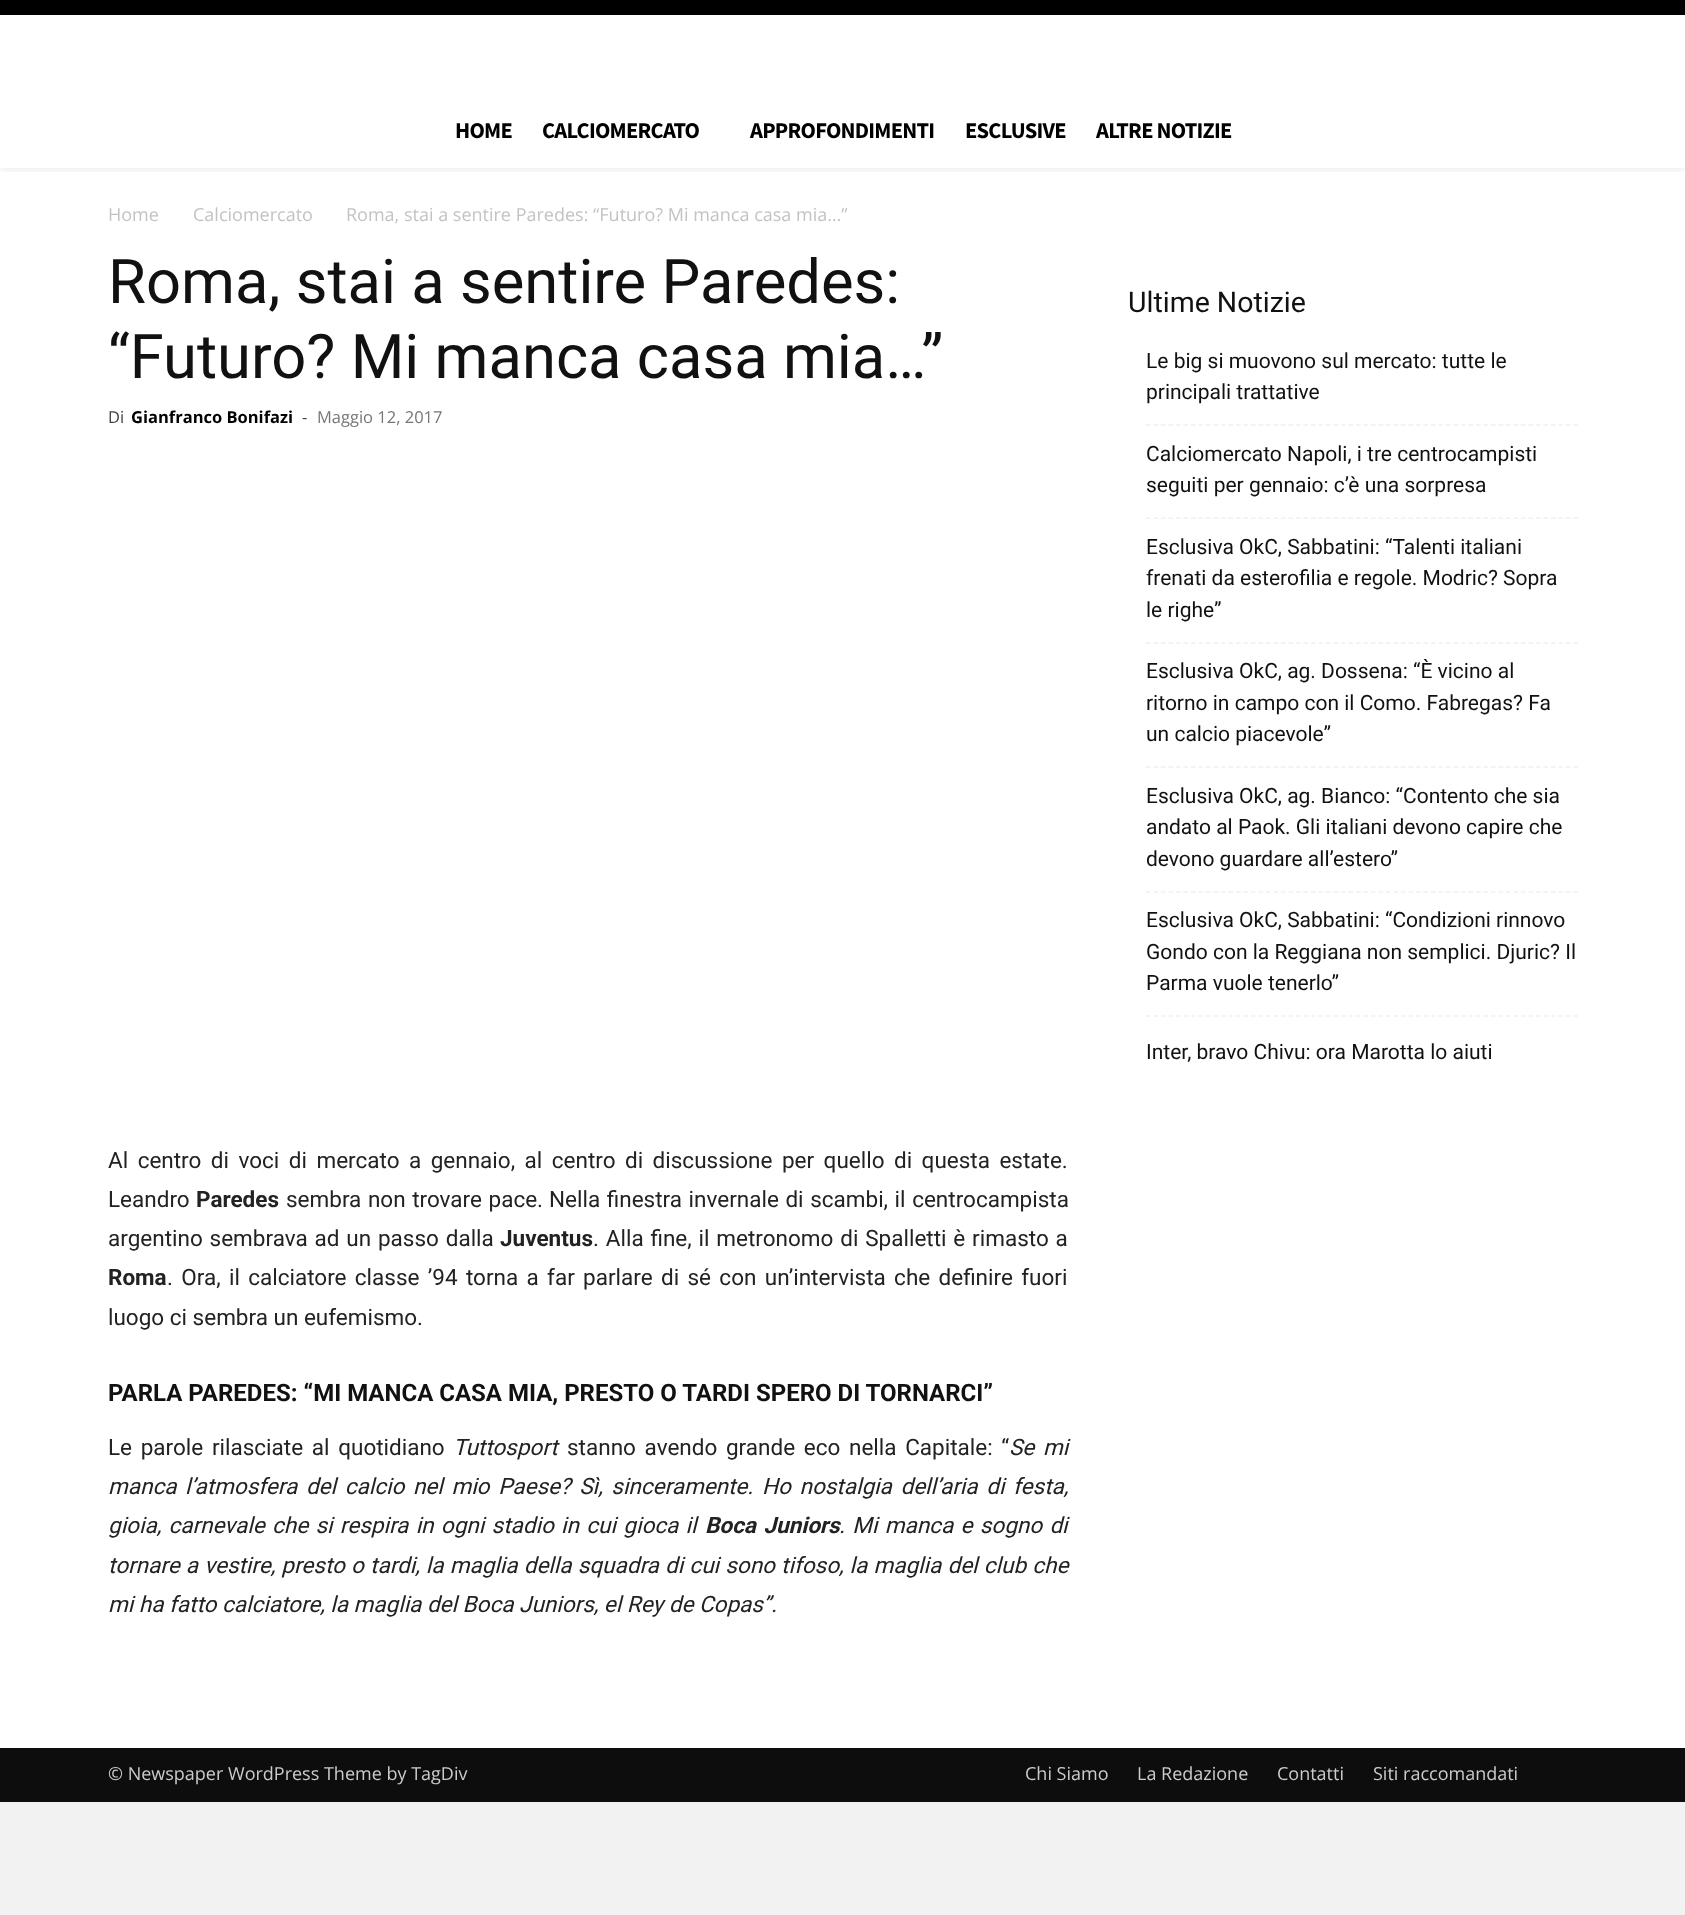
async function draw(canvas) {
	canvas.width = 1685;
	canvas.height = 1915;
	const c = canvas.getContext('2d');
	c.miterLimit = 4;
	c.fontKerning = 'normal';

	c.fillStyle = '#f2f2f2';
	c.fillRect(0, 0, 1685, 1915);
	c.fillStyle = '#000';
	c.fillRect(0, 0, 1685, 15);
	c.fillStyle = '#fff';
	c.fillRect(0, 15, 1685, 1733);
	c.save();
	c.beginPath();
	c.rect(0, 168, 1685, 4);
	c.clip();
	c.fillStyle = '#0000000f';
	c.filter = 'blur(3px)';
	c.beginPath();
	c.rect(0, 95, 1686, 76);
	c.fill();
	c.filter = 'none';
	c.restore();
	c.letterSpacing = '-0.75px';
	c.font = 'bold 22.5px Source Sans Pro';
	c.fillStyle = '#000';
	for (const [text, x, y] of [
		['HOME', 455, 138],
		['CALCIOMERCATO', 542, 138],
		['APPROFONDIMENTI', 750, 138],
		['ESCLUSIVE', 965, 138],
		['ALTRE NOTIZIE', 1096, 138],
	]) {
		c.fillText(text, x, y);
	}
	c.letterSpacing = '0px';
	c.font = '18px Open Sans';
	c.fillStyle = '#c3c3c3';
	for (const [text, x, y] of [
		['Home', 108, 221],
		['Calciomercato', 193, 221],
		['Roma, stai a sentire Paredes: “Futuro? Mi manca casa mia…”', 346, 221],
	]) {
		c.fillText(text, x, y);
	}
	c.font = '61.5px Roboto';
	c.fillStyle = '#111';
	c.fillText('Roma, stai a sentire Paredes:', 108, 303);
	c.fillText('“Futuro? Mi manca casa mia…”', 108, 378);
	c.font = '16.5px Open Sans';
	c.fillStyle = '#444';
	c.fillText('Di', 108, 423);
	c.font = 'bold 16.5px Open Sans';
	c.fillStyle = '#000';
	c.fillText('Gianfranco Bonifazi', 131, 423);
	c.font = '16.5px Open Sans';
	c.fillStyle = '#444';
	c.fillText('-', 302, 423);
	c.fillStyle = '#767676';
	c.fillText('Maggio 12, 2017', 317, 423);
	c.wordSpacing = '3.9px';
	c.font = '22.5px Roboto';
	c.fillStyle = '#222';
	c.fillText('Al centro di voci di mercato a gennaio, al centro di discussione per quello di questa estate.', 108, 1168);
	c.wordSpacing = '0px';
	c.fillText('Leandro', 108, 1207);
	c.font = 'bold 22.5px Roboto';
	c.fillText('Paredes', 196, 1207);
	c.wordSpacing = '1px';
	c.font = '22.5px Roboto';
	c.fillText('sembra non trovare pace.', 286, 1207);
	c.fillText('Nella finestra invernale di scambi, il centrocampista', 549, 1207);
	c.wordSpacing = '1.25px';
	c.fillText('argentino sembrava ad un passo dalla', 108, 1246);
	c.wordSpacing = '0px';
	c.font = 'bold 22.5px Roboto';
	c.fillText('Juventus', 500, 1246);
	c.wordSpacing = '1.25px';
	c.font = '22.5px Roboto';
	c.fillText('. Alla fine, il metronomo di Spalletti è rimasto a', 593, 1246);
	c.wordSpacing = '0px';
	c.font = 'bold 22.5px Roboto';
	c.fillText('Roma', 108, 1285);
	c.wordSpacing = '2.75px';
	c.font = '22.5px Roboto';
	c.fillText('. Ora, il calciatore classe ’94 torna a far parlare di sé con un’intervista che definire fuori', 167, 1285);
	c.wordSpacing = '0px';
	c.fillText('luogo ci sembra un eufemismo.', 108, 1325);
	c.font = 'bold 24px Roboto';
	c.fillStyle = '#111';
	c.fillText('PARLA PAREDES: “MI MANCA CASA MIA, PRESTO O TARDI SPERO DI TORNARCI”', 108, 1401);
	c.wordSpacing = '3.1px';
	c.font = '22.5px Roboto';
	c.fillStyle = '#222';
	c.fillText('Le parole rilasciate al quotidiano', 108, 1455);
	c.wordSpacing = '0px';
	c.font = 'italic 22.5px Roboto';
	c.fillText('Tuttosport', 453, 1455);
	c.wordSpacing = '3.1px';
	c.font = '22.5px Roboto';
	c.fillText('stanno avendo grande eco nella Capitale: “', 567, 1455);
	c.font = 'italic 22.5px Roboto';
	c.fillText('Se mi', 1009, 1455);
	c.fillText('manca l’atmosfera del calcio nel mio Paese? Sì, sinceramente. Ho nostalgia dell’aria di festa,', 108, 1494);
	c.wordSpacing = '1.75px';
	c.fillText('gioia, carnevale che si respira in ogni stadio in cui gioca il', 108, 1533);
	c.wordSpacing = '2px';
	c.font = 'italic bold 22.5px Roboto';
	c.fillText('Boca Juniors', 705, 1533);
	c.wordSpacing = '1.75px';
	c.font = 'italic 22.5px Roboto';
	c.fillText('. Mi manca e sogno di', 839, 1533);
	c.wordSpacing = '0.6px';
	c.fillText('tornare a vestire, presto o tardi, la maglia della squadra di cui sono tifoso, la maglia del club che', 108, 1573);
	c.wordSpacing = '0px';
	c.fillText('mi ha fatto calciatore, la maglia del Boca Juniors, el Rey de Copas”.', 108, 1612);
	c.font = '28.5px Roboto';
	c.fillStyle = '#111';
	c.fillText('Ultime Notizie', 1128, 312);
	c.beginPath();
	c.moveTo(1146, 425);
	c.lineTo(1578, 425);
	c.strokeStyle = '#f1f1f1';
	c.lineWidth = 1.5;
	c.setLineDash([4.5, 3]);
	c.stroke();
	c.font = '21px Roboto';
	c.fillText('Le big si muovono sul mercato: tutte le', 1146, 368);
	c.fillText('principali trattative', 1146, 399);
	c.beginPath();
	c.moveTo(1146, 518);
	c.lineTo(1578, 518);
	c.stroke();
	c.fillText('Calciomercato Napoli, i tre centrocampisti', 1146, 461);
	c.fillText('seguiti per gennaio: c’è una sorpresa', 1146, 492);
	c.beginPath();
	c.moveTo(1146, 643);
	c.lineTo(1578, 643);
	c.stroke();
	for (const [text, x, y] of [
		['Esclusiva OkC, Sabbatini: “Talenti italiani', 1146, 554],
		['frenati da esterofilia e regole. Modric? Sopra', 1146, 585],
		['le righe”', 1146, 617],
	]) {
		c.fillText(text, x, y);
	}
	c.beginPath();
	c.moveTo(1146, 767);
	c.lineTo(1578, 767);
	c.stroke();
	for (const [text, x, y] of [
		['Esclusiva OkC, ag. Dossena: “È vicino al', 1146, 678],
		['ritorno in campo con il Como. Fabregas? Fa', 1146, 710],
		['un calcio piacevole”', 1146, 741],
	]) {
		c.fillText(text, x, y);
	}
	c.beginPath();
	c.moveTo(1146, 892);
	c.lineTo(1578, 892);
	c.stroke();
	for (const [text, x, y] of [
		['Esclusiva OkC, ag. Bianco: “Contento che sia', 1146, 803],
		['andato al Paok. Gli italiani devono capire che', 1146, 834],
		['devono guardare all’estero”', 1146, 866],
	]) {
		c.fillText(text, x, y);
	}
	c.beginPath();
	c.moveTo(1146, 1016);
	c.lineTo(1578, 1016);
	c.stroke();
	for (const [text, x, y] of [
		['Esclusiva OkC, Sabbatini: “Condizioni rinnovo', 1146, 927],
		['Gondo con la Reggiana non semplici. Djuric? Il', 1146, 959],
		['Parma vuole tenerlo”', 1146, 990],
		['Inter, bravo Chivu: ora Marotta lo aiuti', 1146, 1059],
	]) {
		c.fillText(text, x, y);
	}
	c.fillStyle = '#0d0d0d';
	c.fillRect(0, 1748, 1685, 54);
	c.font = '18px Open Sans';
	c.fillStyle = '#ccc';
	for (const [text, x, y] of [
		['© Newspaper WordPress Theme by TagDiv', 108, 1780],
		['Chi Siamo', 1025, 1780],
		['La Redazione', 1137, 1780],
		['Contatti', 1277, 1780],
		['Siti raccomandati', 1373, 1780],
	]) {
		c.fillText(text, x, y);
	}
}

draw(document.querySelector('canvas'));
